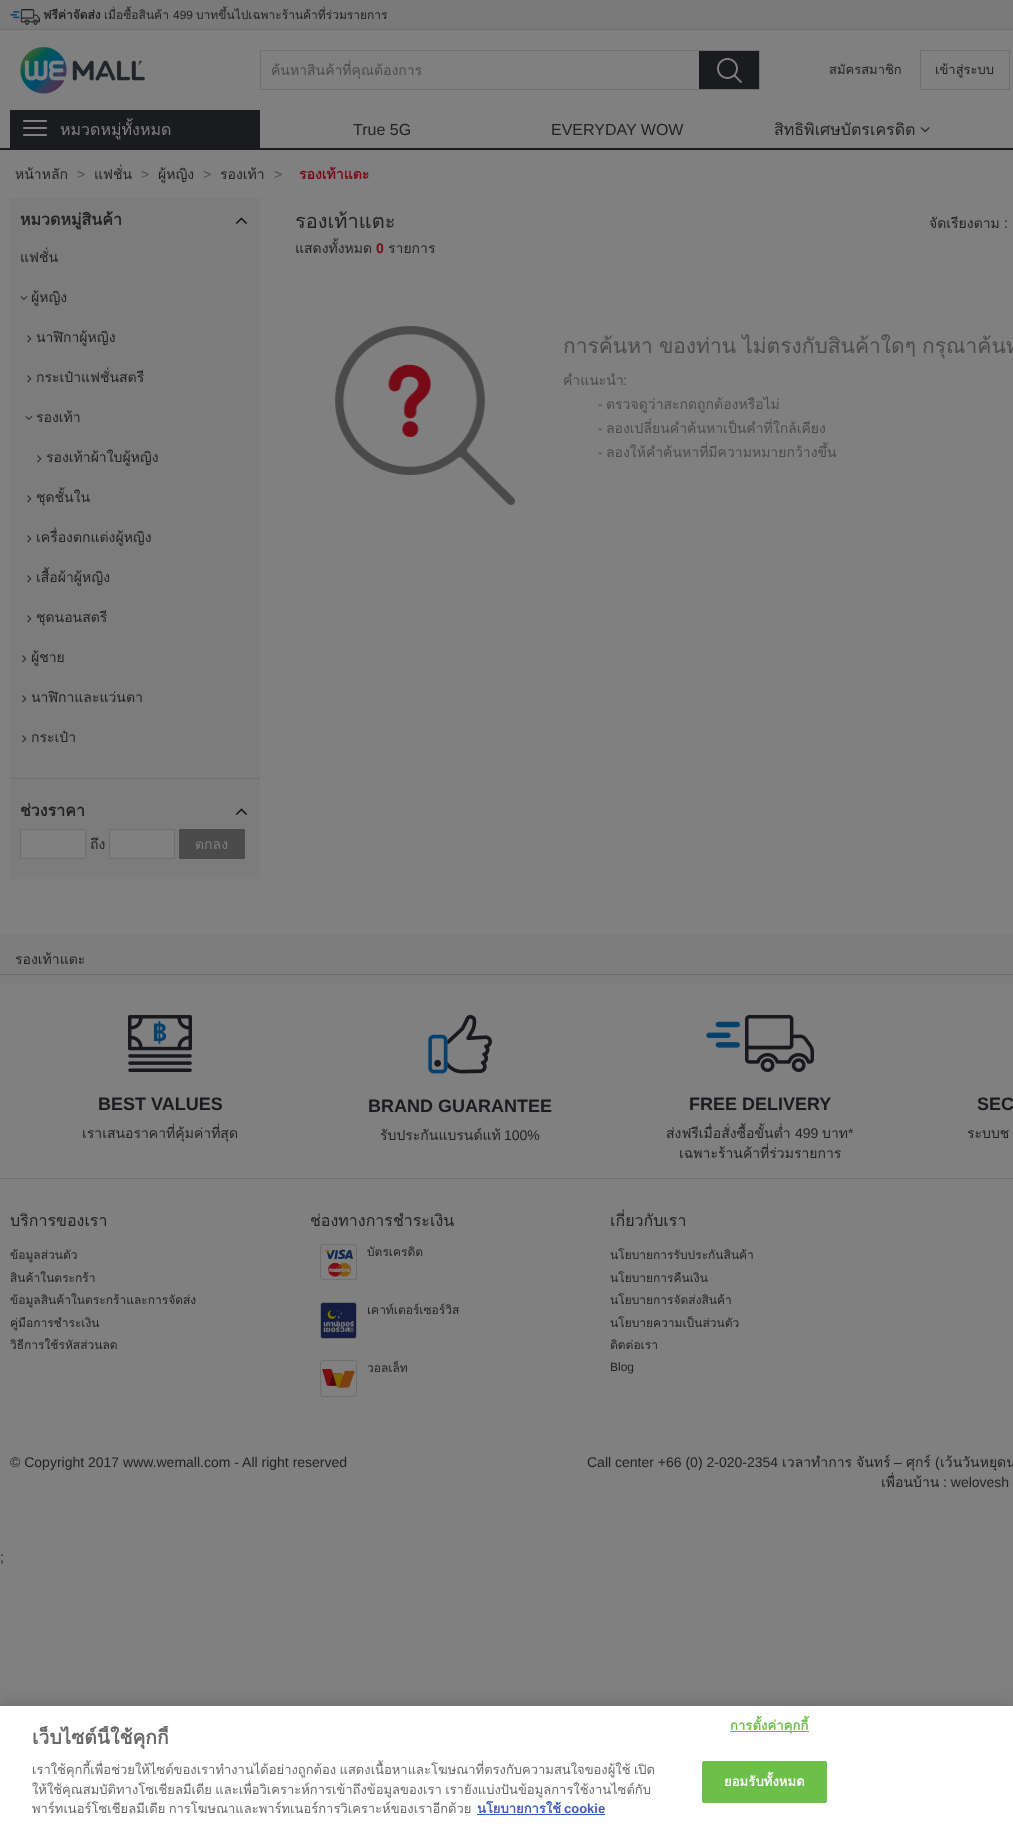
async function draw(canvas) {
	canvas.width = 1013;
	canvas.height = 1842;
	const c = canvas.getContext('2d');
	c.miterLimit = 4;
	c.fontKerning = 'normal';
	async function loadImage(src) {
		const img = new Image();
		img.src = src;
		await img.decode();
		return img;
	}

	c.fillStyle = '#808080';
	c.fillRect(0, 0, 1013, 1842);
	for (const [x, y, w, h, color] of [
		[0, 934, 1013, 50, '#7d7d7d'],
		[0, 0, 1013, 29, '#7a7a7a'],
		[0, 29, 1013, 1, '#6f6f6f'],
	]) {
		c.fillStyle = color;
		c.fillRect(x, y, w, h);
	}
	c.drawImage(await loadImage('img1.png'), 10, 9, 30, 16);
	c.font = 'bold 12px Loma';
	c.fillStyle = '#222';
	c.fillText('ฟรีค่าจัดส่ง', 43, 19);
	c.font = '12px Loma';
	c.fillText('เมื่อซื้อสินค้า', 104, 19);
	c.font = '12px Liberation Sans';
	c.fillText('499', 173, 19);
	c.font = '12px Loma';
	c.fillText('บาทขึ้นไปเฉพาะร้านค้าที่ร่วมรายการ', 196, 19);
	c.drawImage(await loadImage('img2.png'), 20, 47, 125, 47);
	c.strokeStyle = '#6f6f6f';
	c.strokeRect(260.5, 50.5, 499, 39);
	c.save();
	c.beginPath();
	c.rect(271, 59, 418, 22);
	c.clip();
	c.font = '14px Loma';
	c.fillStyle = '#4b4b4b';
	c.fillText('ค้นหาสินค้าที่คุณต้องการ', 271, 75);
	c.restore();
	c.fillStyle = '#1a1b1f';
	c.fillRect(699, 51, 60, 38);
	c.drawImage(await loadImage('img3.png'), 717, 58, 25, 25);
	c.font = '13px Loma';
	c.fillStyle = '#222';
	c.fillText('สมัครสมาชิก', 829, 74);
	c.strokeRect(920.5, 50.5, 89, 39);
	c.fillText('เข้าสู่ระบบ', 935, 74);
	c.fillStyle = '#1a1b1f';
	c.fillRect(0, 148, 1013, 2);
	c.fillRect(10, 110, 250, 38);
	c.drawImage(await loadImage('img4.png'), 23, 120, 24, 16);
	c.font = '16px Loma';
	c.fillStyle = '#808080';
	c.fillText('หมวดหมู่ทั้งหมด', 60, 135);
	c.font = '16px Liberation Sans';
	c.fillStyle = '#222';
	c.fillText('True 5G', 353, 135);
	c.fillText('EVERYDAY WOW', 551, 135);
	c.font = '16px Loma';
	c.fillText('สิทธิพิเศษบัตรเครดิต', 774, 135);
	c.drawImage(await loadImage('img5.png'), 920, 127, 10, 6);
	c.font = '14px Loma';
	c.fillText('หน้าหลัก', 15, 179);
	c.font = '14px Liberation Sans';
	c.fillStyle = '#4b4b4b';
	c.fillText('>', 77, 179);
	c.font = '14px Loma';
	c.fillStyle = '#222';
	c.fillText('แฟชั่น', 94, 179);
	c.font = '14px Liberation Sans';
	c.fillStyle = '#4b4b4b';
	c.fillText('>', 141, 179);
	c.font = '14px Loma';
	c.fillStyle = '#222';
	c.fillText('ผู้หญิง', 158, 179);
	c.font = '14px Liberation Sans';
	c.fillStyle = '#4b4b4b';
	c.fillText('>', 203, 179);
	c.font = '14px Loma';
	c.fillStyle = '#222';
	c.fillText('รองเท้า', 220, 179);
	c.font = '14px Liberation Sans';
	c.fillStyle = '#4b4b4b';
	c.fillText('>', 274, 179);
	c.font = 'bold 14px Loma';
	c.fillStyle = '#770a16';
	c.fillText('รองเท้าแตะ', 299, 179);
	c.fillStyle = '#7c7c7c';
	c.fillRect(10, 198, 250, 681);
	c.fillStyle = '#6f6f6f';
	c.fillRect(10, 778, 250, 1);
	c.drawImage(await loadImage('img6.png'), 235, 217, 12, 7);
	c.font = 'bold 16px Loma';
	c.fillStyle = '#222';
	c.fillText('หมวดหมู่สินค้า', 20, 225);
	c.font = '14px Loma';
	c.fillText('แฟชั่น', 20, 262);
	c.fillText('ผู้หญิง', 31, 302);
	c.drawImage(await loadImage('img7.png'), 20, 296, 8, 4);
	c.drawImage(await loadImage('img8.png'), 27, 335, 5, 8);
	c.fillText('นาฬิกาผู้หญิง', 36, 342);
	c.drawImage(await loadImage('img8.png'), 27, 375, 5, 8);
	c.fillText('กระเป๋าแฟชั่นสตรี', 36, 382);
	c.drawImage(await loadImage('img7.png'), 25, 416, 8, 4);
	c.fillText('รองเท้า', 36, 422);
	c.drawImage(await loadImage('img8.png'), 37, 455, 5, 8);
	c.fillText('รองเท้าผ้าใบผู้หญิง', 46, 462);
	c.drawImage(await loadImage('img8.png'), 27, 495, 5, 8);
	c.fillText('ชุดชั้นใน', 36, 502);
	c.drawImage(await loadImage('img8.png'), 27, 535, 5, 8);
	c.fillText('เครื่องตกแต่งผู้หญิง', 36, 542);
	c.drawImage(await loadImage('img8.png'), 27, 575, 5, 8);
	c.fillText('เสื้อผ้าผู้หญิง', 36, 582);
	c.drawImage(await loadImage('img8.png'), 27, 615, 5, 8);
	c.fillText('ชุดนอนสตรี', 36, 622);
	c.fillText('ผู้ชาย', 31, 662);
	c.drawImage(await loadImage('img9.png'), 22, 655, 5, 8);
	c.drawImage(await loadImage('img8.png'), 22, 695, 5, 8);
	c.fillText('นาฬิกาและแว่นตา', 31, 702);
	c.drawImage(await loadImage('img8.png'), 22, 735, 5, 8);
	c.fillText('กระเป๋า', 31, 742);
	c.drawImage(await loadImage('img6.png'), 235, 808, 12, 7);
	c.font = 'bold 16px Loma';
	c.fillText('ช่วงราคา', 20, 816);
	c.fillStyle = '#808080';
	c.beginPath();
	c.rect(20.5, 829.5, 65, 29);
	c.fill();
	c.stroke();
	c.font = '14px Loma';
	c.fillStyle = '#222';
	c.fillText('ถึง', 90, 849);
	c.fillStyle = '#808080';
	c.beginPath();
	c.rect(109.5, 829.5, 65, 29);
	c.fill();
	c.stroke();
	c.fillStyle = '#4b4b4b';
	c.fillRect(179, 829, 66, 30);
	c.fillStyle = '#808080';
	c.fillText('ตกลง', 195, 849);
	c.font = '20px Loma';
	c.fillStyle = '#222';
	c.fillText('รองเท้าแตะ', 295, 228);
	c.font = '14px Loma';
	c.fillText('แสดงทั้งหมด', 295, 253);
	c.font = 'bold 14px Liberation Sans';
	c.fillStyle = '#770a16';
	c.fillText('0', 376, 253);
	c.font = '14px Loma';
	c.fillStyle = '#222';
	c.fillText('รายการ', 388, 253);
	c.fillText('จัดเรียงตาม', 929, 228);
	c.font = '14px Liberation Sans';
	c.fillText(':', 1004, 228);
	c.drawImage(await loadImage('img10.png'), 335, 326, 180, 179);
	c.wordSpacing = '-1px';
	c.font = '21px Loma';
	c.fillStyle = '#4b4b4b';
	c.fillText('การค้นหา ของท่าน ไม่ตรงกับสินค้าใดๆ กรุณาค้นห', 563, 353);
	c.wordSpacing = '0px';
	c.font = '14px Loma';
	c.fillText('คำแนะนำ', 563, 385);
	c.font = '14px Liberation Sans';
	c.fillText(':', 623, 385);
	c.fillText('-', 598, 409);
	c.font = '14px Loma';
	c.fillText('ตรวจดูว่าสะกดถูกต้องหรือไม่', 606, 409);
	c.font = '14px Liberation Sans';
	c.fillText('-', 598, 433);
	c.font = '14px Loma';
	c.fillText('ลองเปลี่ยนคำค้นหาเป็นคำที่ใกล้เคียง', 606, 433);
	c.font = '14px Liberation Sans';
	c.fillText('-', 598, 457);
	c.font = '14px Loma';
	c.fillText('ลองให้คำค้นหาที่มีความหมายกว้างขึ้น', 606, 457);
	c.fillStyle = '#6d6d6d';
	c.fillRect(0, 974, 1013, 1);
	c.fillStyle = '#6f6f6f';
	c.fillRect(0, 1178, 1013, 1);
	c.drawImage(await loadImage('img11.png'), 128, 1015, 64, 57);
	c.font = 'bold 18px Liberation Sans';
	c.fillStyle = '#1a1b1f';
	c.fillText('BEST VALUES', 98, 1110);
	c.font = '14px Loma';
	c.fillStyle = '#222';
	c.fillText('เราเสนอราคาที่คุ้มค่าที่สุด', 82, 1138);
	c.drawImage(await loadImage('img12.png'), 428, 1015, 64, 59);
	c.font = 'bold 18px Liberation Sans';
	c.fillStyle = '#1a1b1f';
	c.fillText('BRAND GUARANTEE', 368, 1112);
	c.font = '14px Loma';
	c.fillStyle = '#222';
	c.fillText('รับประกันแบรนด์แท้', 380, 1140);
	c.font = '14px Liberation Sans';
	c.fillText('100%', 504, 1140);
	c.drawImage(await loadImage('img13.png'), 706, 1015, 108, 57);
	c.font = 'bold 18px Liberation Sans';
	c.fillStyle = '#1a1b1f';
	c.fillText('FREE DELIVERY', 689, 1110);
	c.font = '14px Loma';
	c.fillStyle = '#222';
	c.fillText('ส่งฟรีเมื่อสั่งซื้อขั้นต่ำ', 666, 1138);
	c.font = '14px Liberation Sans';
	c.fillText('499', 795, 1138);
	c.font = '14px Loma';
	c.fillText('บาท', 822, 1138);
	c.font = '14px Liberation Sans';
	c.fillText('*', 848, 1138);
	c.font = '14px Loma';
	c.fillText('เฉพาะร้านค้าที่ร่วมรายการ', 679, 1158);
	c.font = 'bold 18px Liberation Sans';
	c.fillStyle = '#1a1b1f';
	c.fillText('SEC', 977, 1110);
	c.wordSpacing = '-1px';
	c.font = '14px Loma';
	c.fillStyle = '#222';
	c.fillText('ระบบช', 967, 1138);
	c.wordSpacing = '0px';
	c.font = '16px Loma';
	c.fillText('บริการของเรา', 10, 1226);
	c.save();
	c.beginPath();
	c.rect(10, 1209, 900, 208);
	c.clip();
	c.font = '12px Loma';
	for (const [text, x, y] of [
		['ข้อมูลส่วนตัว', 10, 1259],
		['สินค้าในตระกร้า', 10, 1282],
		['ข้อมูลสินค้าในตระกร้าและการจัดส่ง', 10, 1304],
		['คู่มือการชำระเงิน', 10, 1327],
		['วิธีการใช้รหัสส่วนลด', 10, 1349],
	]) {
		c.fillText(text, x, y);
	}
	c.restore();
	c.fillText('ช่องทางการชำระเงิน', 310, 1226);
	c.drawImage(await loadImage('img14.png'), 320, 1244, 37, 36);
	c.font = '12px Loma';
	c.fillText('บัตรเครดิต', 367, 1256);
	c.drawImage(await loadImage('img15.png'), 320, 1302, 37, 37);
	c.fillText('เคาท์เตอร์เซอร์วิส', 367, 1314);
	c.drawImage(await loadImage('img16.png'), 320, 1360, 37, 37);
	c.fillText('วอลเล็ท', 367, 1372);
	c.font = '16px Loma';
	c.fillText('เกี่ยวกับเรา', 610, 1226);
	c.font = '12px Loma';
	for (const [text, x, y] of [
		['นโยบายการรับประกันสินค้า', 610, 1259],
		['นโยบายการคืนเงิน', 610, 1282],
		['นโยบายการจัดส่งสินค้า', 610, 1304],
		['นโยบายความเป็นส่วนตัว', 610, 1327],
		['ติดต่อเรา', 610, 1349],
	]) {
		c.fillText(text, x, y);
	}
	c.font = '12px Liberation Sans';
	c.fillText('Blog', 610, 1371);
	c.font = '14px Liberation Sans';
	c.fillText('© Copyright 2017 www.wemall.com - All right reserved', 10, 1467);
	c.fillText('Call center +66 (0) 2-020-2354', 587, 1467);
	c.font = '14px Loma';
	c.fillText('เวลาทำการ', 782, 1467);
	c.fillText('จันทร์', 856, 1467);
	c.font = '14px Liberation Sans';
	c.fillText('–', 894, 1467);
	c.font = '14px Loma';
	c.fillText('ศุกร์', 906, 1467);
	c.font = '14px Liberation Sans';
	c.fillText('(', 935, 1467);
	c.font = '14px Loma';
	c.fillText('เว้นวันหยุดน', 940, 1467);
	c.fillText('เพื่อนบ้าน', 881, 1487);
	c.font = '14px Liberation Sans';
	c.fillText(': welovesh', 943, 1487);
	c.font = '14px Loma';
	c.fillText('รองเท้าแตะ', 15, 964);
	c.font = '14px Liberation Sans';
	c.fillText(';', 0, 1562);
	c.fillStyle = '#00000033';
	c.filter = 'blur(9px)';
	c.beginPath();
	c.rect(0, 1706, 1013, 136);
	c.fill();
	c.filter = 'none';
	c.fillStyle = '#fff';
	c.fillRect(0, 1706, 1013, 136);
	c.save();
	c.beginPath();
	c.rect(32, 1726, 630, 106);
	c.clip();
	c.font = 'bold 19.25px Loma';
	c.fillStyle = '#696969';
	c.fillText('เว็บไซต์นี้ใช้คุกกี้', 32, 1744);
	c.restore();
	c.wordSpacing = '-1px';
	c.font = '13px Loma';
	c.fillStyle = '#696969';
	for (const [text, x, y] of [
		['เราใช้คุกกี้เพื่อช่วยให้ไซต์ของเราทำงานได้อย่างถูกต้อง แสดงเนื้อหาและโฆษณาที่ตรงกับความสนใจของผู้ใช้ เปิด', 32, 1774],
		['ให้ใช้คุณสมบัติทางโซเชียลมีเดีย และเพื่อวิเคราะห์การเข้าถึงข้อมูลของเรา เรายังแบ่งปันข้อมูลการใช้งานไซต์กับ', 32, 1794],
		['พาร์ทเนอร์โซเชียลมีเดีย การโฆษณาและพาร์ทเนอร์การวิเคราะห์ของเราอีกด้วย', 32, 1813],
	]) {
		c.fillText(text, x, y);
	}
	c.wordSpacing = '0px';
	c.font = 'bold 13px Loma';
	c.fillStyle = '#3860be';
	c.fillText('นโยบายการใช้', 477, 1813);
	c.font = 'bold 13px Liberation Sans';
	c.fillText('cookie', 564, 1813);
	c.fillRect(477, 1814, 128, 1);
	c.fillStyle = '#6cc04a';
	c.fillRect(730, 1731, 79, 1);
	c.letterSpacing = '0.1px';
	c.font = 'bold 13px Loma';
	c.fillText('การตั้งค่าคุกกี้', 730, 1730);
	c.beginPath();
	c.roundRect(702.5, 1761.5, 124, 41, 1.5);
	c.fill();
	c.strokeStyle = '#6cc04a';
	c.stroke();
	c.fillStyle = '#fff';
	c.fillText('ยอมรับทั้งหมด', 724, 1786);
}

draw(document.querySelector('canvas'));
